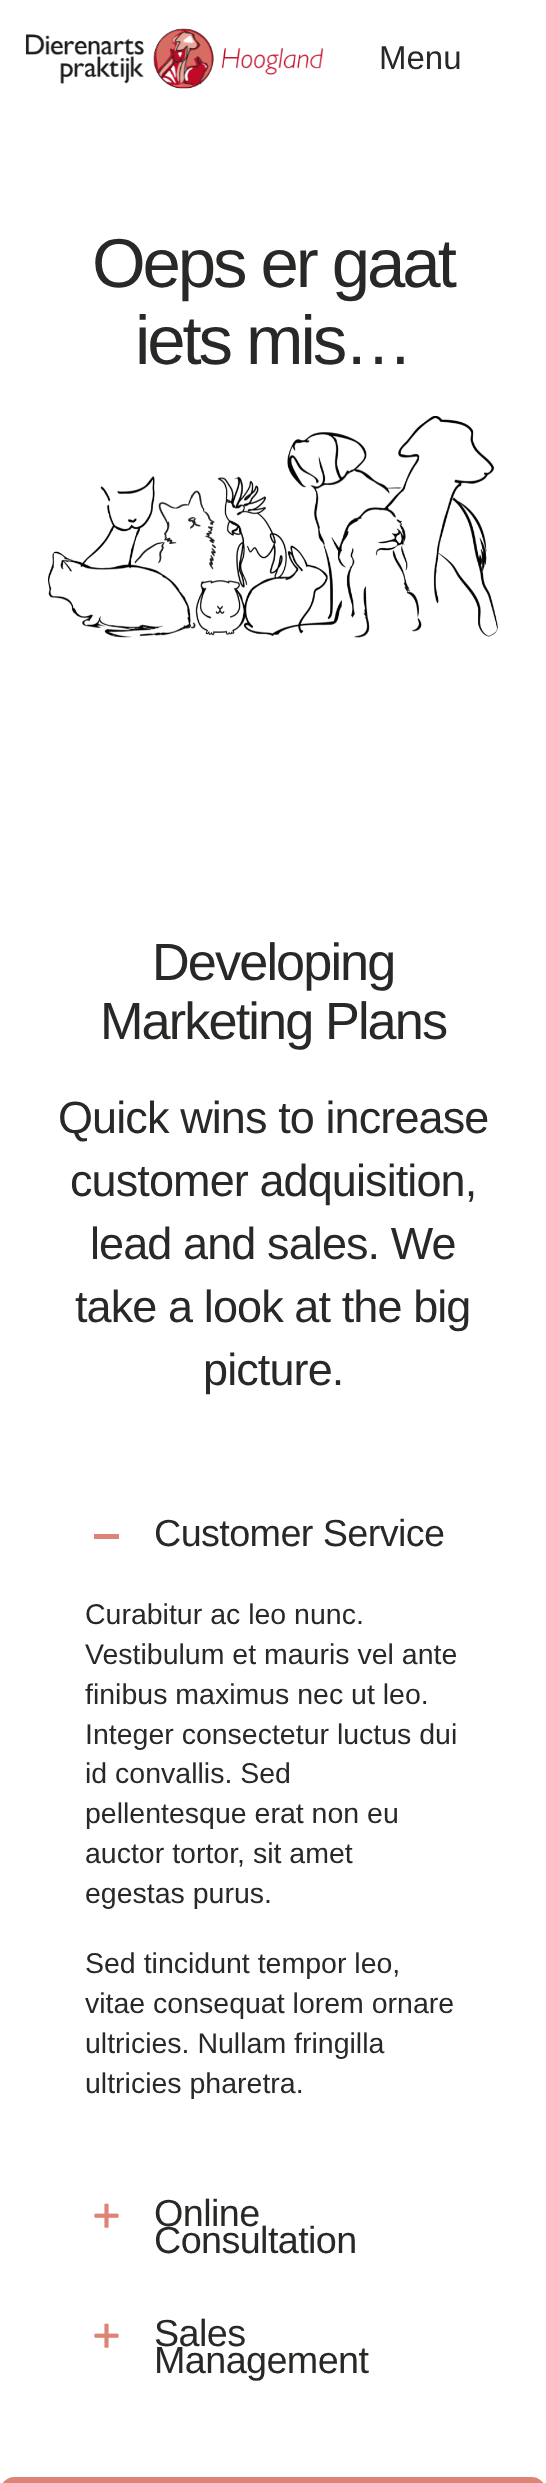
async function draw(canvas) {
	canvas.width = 546;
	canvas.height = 2483;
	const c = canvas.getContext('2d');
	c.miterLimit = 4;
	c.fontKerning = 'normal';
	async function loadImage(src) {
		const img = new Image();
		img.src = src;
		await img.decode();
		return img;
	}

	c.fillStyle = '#fff';
	c.fillRect(0, 0, 546, 2483);
	c.drawImage(await loadImage('img1.png'), 25, 28, 299, 61);
	c.font = '33px Liberation Sans';
	c.fillStyle = '#282826';
	c.fillText('Menu', 379, 69);
	c.letterSpacing = '-3.1px';
	c.font = '69px Liberation Sans';
	c.fillText('Oeps er gaat', 92, 287);
	c.fillText('iets mis…', 135, 364);
	c.drawImage(await loadImage('img2.png'), 48, 416, 450, 222);
	c.letterSpacing = '-1.9px';
	c.font = '52.25px Liberation Sans';
	c.fillText('Developing', 152, 980);
	c.fillText('Marketing Plans', 100, 1039);
	c.letterSpacing = '-0.9px';
	c.font = '45px Liberation Sans';
	for (const [text, x, y] of [
		['Quick wins to increase', 58, 1133],
		['customer adquisition,', 70, 1196],
		['lead and sales. We', 90, 1259],
		['take a look at the big', 75, 1322],
		['picture.', 203, 1385],
	]) {
		c.fillText(text, x, y);
	}
	c.fillStyle = '#de8477';
	c.fillRect(94, 1534, 25, 5);
	c.letterSpacing = '-0.6px';
	c.font = '37.75px Liberation Sans';
	c.fillStyle = '#282826';
	c.fillText('Customer Service', 154, 1546);
	c.letterSpacing = '0px';
	c.font = '28.5px Liberation Sans';
	for (const [text, x, y] of [
		['Curabitur ac leo nunc.', 85, 1624],
		['Vestibulum et mauris vel ante', 85, 1664],
		['finibus maximus nec ut leo.', 85, 1704],
		['Integer consectetur luctus dui', 85, 1744],
		['id convallis. Sed', 85, 1783],
		['pellentesque erat non eu', 85, 1823],
		['auctor tortor, sit amet', 85, 1863],
		['egestas purus.', 85, 1903],
		['Sed tincidunt tempor leo,', 85, 1973],
		['vitae consequat lorem ornare', 85, 2013],
		['ultricies. Nullam fringilla', 85, 2053],
		['ultricies pharetra.', 85, 2093],
	]) {
		c.fillText(text, x, y);
	}
	c.drawImage(await loadImage('img3.png'), 94, 2203, 25, 25);
	c.letterSpacing = '-0.6px';
	c.font = '37.75px Liberation Sans';
	c.fillText('Online', 154, 2226);
	c.fillText('Consultation', 154, 2253);
	c.drawImage(await loadImage('img3.png'), 94, 2323, 25, 25);
	c.fillText('Sales', 154, 2346);
	c.fillText('Management', 154, 2373);
	c.fillStyle = '#de8477';
	c.beginPath();
	c.roundRect(0, 2477, 546, 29, 23);
	c.fill();
}

draw(document.querySelector('canvas'));
